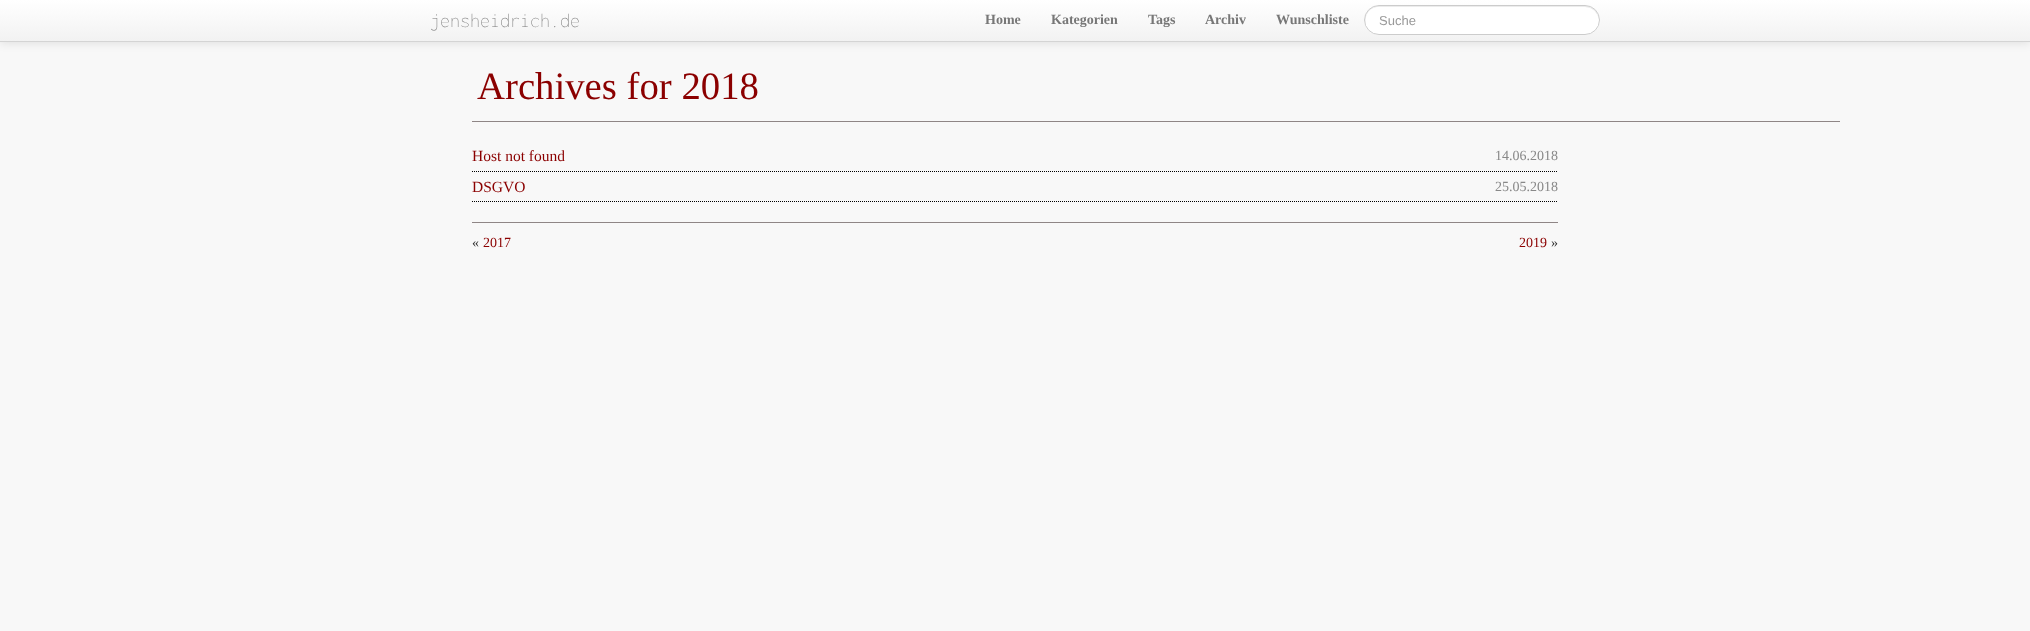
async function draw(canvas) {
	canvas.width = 2030;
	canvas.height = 631;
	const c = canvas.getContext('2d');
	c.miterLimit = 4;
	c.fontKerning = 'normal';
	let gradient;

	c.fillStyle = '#f8f8f8';
	c.fillRect(0, 0, 2030, 631);
	c.fillStyle = '#0000001a';
	c.filter = 'blur(5px)';
	c.beginPath();
	c.rect(0, 1, 2030, 42);
	c.fill();
	c.filter = 'none';
	gradient = c.createLinearGradient(1015, 0, 1015, 41);
	gradient.addColorStop(0, '#fff');
	gradient.addColorStop(1, '#f2f2f2');
	c.fillStyle = gradient;
	c.fillRect(0, 0, 2030, 41);
	c.fillStyle = '#d4d4d4';
	c.fillRect(0, 41, 2030, 1);
	c.font = '200 20px Inconsolata';
	c.fillStyle = '#777';
	c.fillText('jensheidrich.de', 430, 27);
	c.font = 'bold 14px Liberation Serif';
	for (const [text, x, y] of [
		['Home', 985, 24],
		['Kategorien', 1051, 24],
		['Tags', 1148, 24],
		['Archiv', 1205, 24],
		['Wunschliste', 1276, 24],
	]) {
		c.fillText(text, x, y);
	}
	c.fillStyle = '#fff';
	c.beginPath();
	c.roundRect(1364, 5, 236, 30, 15);
	c.fill();
	c.fillStyle = '#ececec';
	c.beginPath();
	c.moveTo(1379, 7);
	c.lineTo(1585, 7);
	c.lineTo(1590, 8);
	c.bezierCurveTo(1595, 10, 1598, 15, 1599, 20);
	c.bezierCurveTo(1599, 12, 1593, 6, 1585, 6);
	c.lineTo(1379, 6);
	c.bezierCurveTo(1371, 6, 1365, 12, 1365, 20);
	c.bezierCurveTo(1365, 22, 1365, 24, 1366, 26);
	c.bezierCurveTo(1364, 17, 1368, 7, 1379, 7);
	c.closePath();
	c.fill();
	c.beginPath();
	c.roundRect(1364.5, 5.5, 235, 29, 14.5);
	c.strokeStyle = '#ccc';
	c.stroke();
	c.font = '13px Liberation Sans';
	c.fillStyle = '#999';
	c.fillText('Suche', 1379, 25);
	c.fillStyle = '#8f8686';
	c.fillRect(472, 121, 1368, 1);
	c.font = '38.75px Liberation Serif';
	c.fillStyle = '#8b0000';
	c.fillText('Archives for 2018', 477, 99);
	c.beginPath();
	c.moveTo(472, 171.5);
	c.lineTo(1558, 171.5);
	c.strokeStyle = '#000';
	c.setLineDash([1, 1]);
	c.stroke();
	c.font = '15.5px Liberation Serif';
	c.fillText('Host not found', 472, 161);
	c.font = '14px Liberation Serif';
	c.fillStyle = '#888';
	c.fillText('14.06.2018', 1495, 160);
	c.beginPath();
	c.moveTo(472, 201.5);
	c.lineTo(1558, 201.5);
	c.stroke();
	c.font = '15.5px Liberation Serif';
	c.fillStyle = '#8b0000';
	c.fillText('DSGVO', 472, 192);
	c.font = '14px Liberation Serif';
	c.fillStyle = '#888';
	c.fillText('25.05.2018', 1495, 191);
	c.fillStyle = '#8f8686';
	c.fillRect(472, 222, 1086, 1);
	c.fillStyle = '#333';
	c.fillText('«', 472, 247);
	c.fillStyle = '#8b0000';
	c.fillText('2017', 483, 247);
	c.fillText('2019', 1519, 247);
	c.fillStyle = '#333';
	c.fillText('»', 1551, 247);
}

draw(document.querySelector('canvas'));
